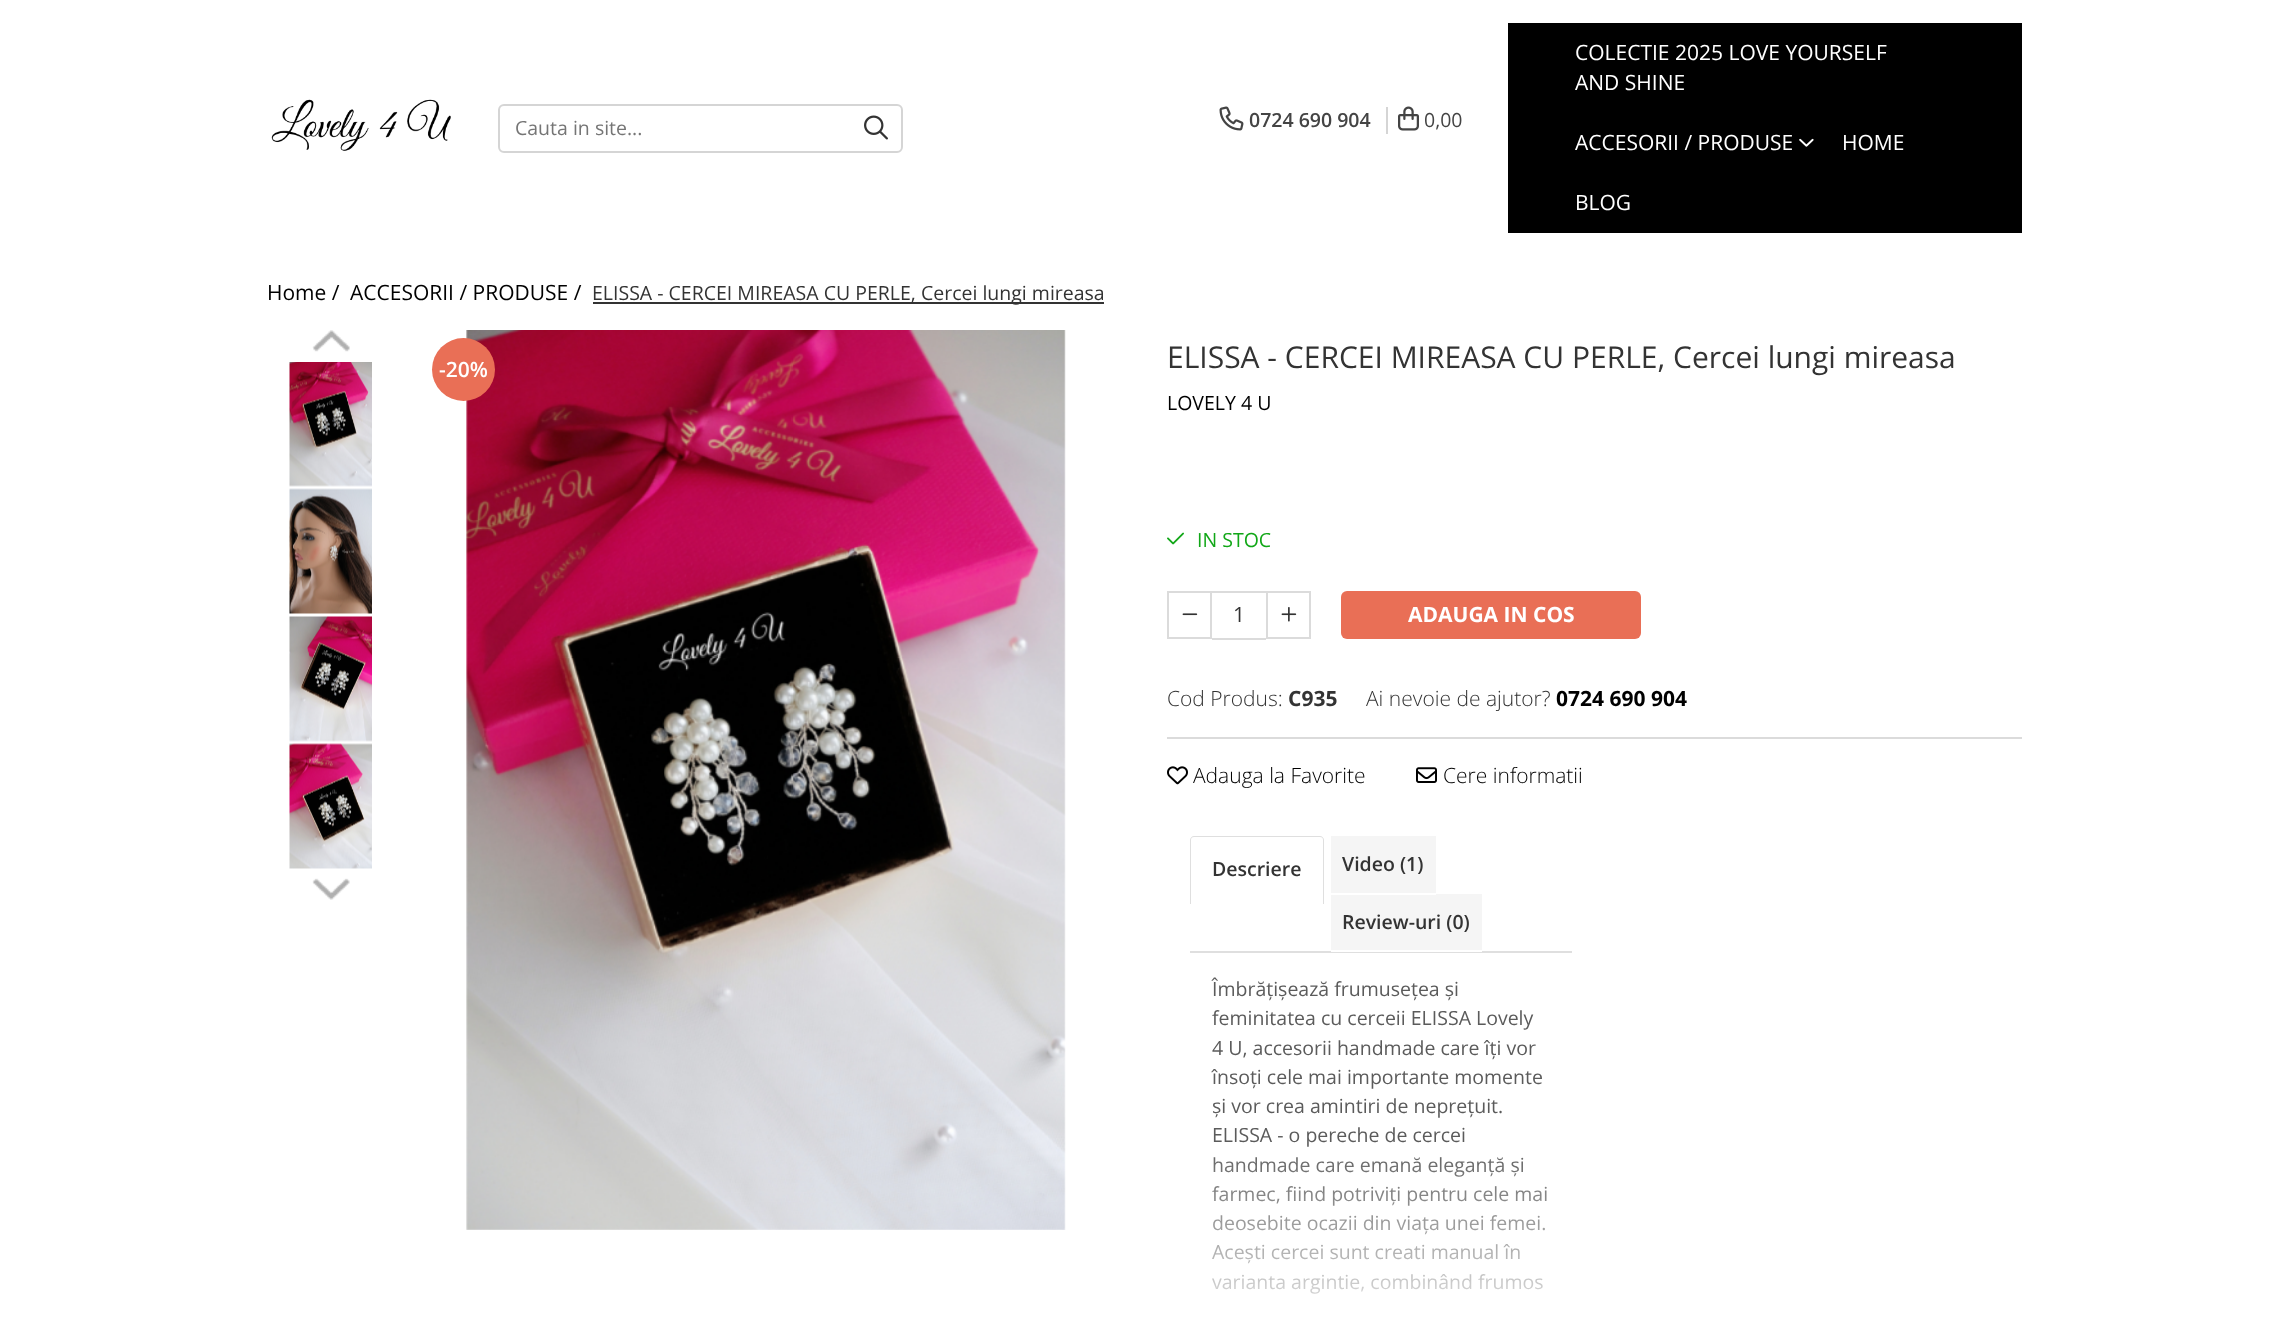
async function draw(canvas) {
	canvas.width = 2289;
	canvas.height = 1329;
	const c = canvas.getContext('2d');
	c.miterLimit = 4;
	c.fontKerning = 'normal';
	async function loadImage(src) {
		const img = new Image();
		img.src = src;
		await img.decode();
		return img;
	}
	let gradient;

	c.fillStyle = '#fff';
	c.fillRect(0, 0, 2289, 1329);
	c.drawImage(await loadImage('img1.png'), 271, 99, 180, 52);
	c.beginPath();
	c.roundRect(499, 105, 403, 47, 5);
	c.strokeStyle = '#d5d5d5';
	c.lineWidth = 2;
	c.stroke();
	c.font = '19.5px Open Sans';
	c.fillStyle = '#757575';
	c.fillText('Cauta in site...', 515, 135);
	c.drawImage(await loadImage('img2.png'), 864, 115, 24, 25);
	c.drawImage(await loadImage('img3.png'), 1219, 106, 25, 25);
	c.font = '600 19.5px Open Sans';
	c.fillStyle = '#444';
	c.fillText('0724 690 904', 1249, 127);
	c.fillStyle = '#d5d5d5';
	c.fillRect(1386, 107, 2, 27);
	c.drawImage(await loadImage('img4.png'), 1398, 106, 21, 25);
	c.font = '19.5px Open Sans';
	c.fillStyle = '#444';
	c.fillText('0,00', 1424, 127);
	c.fillStyle = '#000';
	c.fillRect(1508, 23, 514, 210);
	c.font = '21px Open Sans';
	c.fillStyle = '#fff';
	for (const [text, x, y] of [
		['COLECTIE 2025 LOVE YOURSELF', 1575, 60],
		['AND SHINE', 1575, 90],
		['ACCESORII / PRODUSE', 1575, 150],
	]) {
		c.fillText(text, x, y);
	}
	c.drawImage(await loadImage('img5.png'), 1799, 138, 15, 9);
	c.fillText('HOME', 1842, 150);
	c.fillText('BLOG', 1575, 210);
	c.fillStyle = '#000';
	c.fillText('Home /', 267, 300);
	c.fillText('ACCESORII / PRODUSE /', 350, 300);
	c.fillStyle = '#333';
	c.fillRect(593, 302, 511, 2);
	c.font = '19.5px Open Sans';
	c.fillText('ELISSA - CERCEI MIREASA CU PERLE, Cercei lungi mireasa', 592, 300);
	c.drawImage(await loadImage('img6.png'), 312, 330, 38, 22);
	c.drawImage(await loadImage('img7.png'), 289, 362, 83, 125);
	c.drawImage(await loadImage('img8.png'), 289, 488, 83, 126);
	c.drawImage(await loadImage('img9.png'), 289, 616, 83, 126);
	c.drawImage(await loadImage('img10.png'), 289, 743, 83, 126);
	c.drawImage(await loadImage('img11.png'), 312, 878, 38, 22);
	c.drawImage(await loadImage('img12.png'), 466, 330, 600, 900);
	c.fillStyle = '#e96f56';
	c.beginPath();
	c.arc(463.5, 369.5, 31.5, 0, 2 * Math.PI);
	c.fill();
	c.font = '600 21px Open Sans';
	c.fillStyle = '#fff';
	c.fillText('-20%', 439, 377);
	c.font = '30px Open Sans';
	c.fillStyle = '#333';
	c.fillText('ELISSA - CERCEI MIREASA CU PERLE, Cercei lungi mireasa', 1167, 368);
	c.font = '19.5px Open Sans';
	c.fillStyle = '#000';
	c.fillText('LOVELY 4 U', 1167, 410);
	c.drawImage(await loadImage('img13.png'), 1167, 532, 17, 13);
	c.fillStyle = '#11a717';
	c.fillText('IN STOC', 1197, 547);
	c.strokeStyle = '#dbdbdb';
	c.strokeRect(1168, 592, 43, 46);
	c.drawImage(await loadImage('img14.png'), 1182, 613, 16, 3);
	c.fillStyle = '#dbdbdb';
	c.fillRect(1212, 591, 54, 2);
	c.fillRect(1212, 638, 54, 2);
	c.font = '21px Open Sans';
	c.fillStyle = '#333';
	c.fillText('1', 1233, 622);
	c.strokeRect(1267, 592, 43, 46);
	c.drawImage(await loadImage('img15.png'), 1281, 607, 16, 15);
	c.fillStyle = '#e96f56';
	c.beginPath();
	c.roundRect(1341, 591, 300, 48, 6);
	c.fill();
	c.font = 'bold 21px Open Sans';
	c.fillStyle = '#fff';
	c.fillText('ADAUGA IN COS', 1408, 622);
	c.font = '300 21px Open Sans';
	c.fillStyle = '#333';
	c.fillText('Cod Produs:', 1167, 706);
	c.font = 'bold 21px Open Sans';
	c.fillText('C935', 1288, 706);
	c.font = '300 21px Open Sans';
	c.fillText('Ai nevoie de ajutor?', 1366, 706);
	c.font = 'bold 21px Open Sans';
	c.fillStyle = '#000';
	c.fillText('0724 690 904', 1556, 706);
	c.fillStyle = '#dbdbdb';
	c.fillRect(1167, 737, 855, 2);
	c.drawImage(await loadImage('img16.png'), 1167, 766, 21, 19);
	c.font = '300 21px Open Sans';
	c.fillStyle = '#000';
	c.fillText('Adauga la Favorite', 1193, 783);
	c.drawImage(await loadImage('img17.png'), 1416, 767, 21, 16);
	c.fillText('Cere informatii', 1443, 783);
	c.fillStyle = '#dfdfdf';
	c.beginPath();
	c.moveTo(1194, 836);
	c.lineTo(1320, 836);
	c.bezierCurveTo(1322, 836, 1324, 838, 1324, 840);
	c.lineTo(1324, 904);
	c.lineTo(1190, 904);
	c.lineTo(1190, 840);
	c.bezierCurveTo(1190, 838, 1192, 836, 1194, 836);
	c.closePath();
	c.moveTo(1194, 837);
	c.lineTo(1320, 837);
	c.bezierCurveTo(1322, 837, 1323, 838, 1323, 840);
	c.lineTo(1323, 904);
	c.lineTo(1191, 904);
	c.lineTo(1191, 840);
	c.bezierCurveTo(1191, 838, 1192, 837, 1194, 837);
	c.closePath();
	c.fill('evenodd');
	c.font = '600 19.5px Open Sans';
	c.fillStyle = '#333';
	c.fillText('Descriere', 1212, 876);
	c.fillStyle = '#f5f5f5';
	c.fillRect(1331, 836, 105, 57);
	c.fillStyle = '#333';
	c.fillText('Video (1)', 1342, 871);
	c.fillStyle = '#f5f5f5';
	c.fillRect(1331, 894, 151, 56);
	c.fillStyle = '#fff';
	c.fillRect(1331, 894, 105, 1);
	c.fillStyle = '#333';
	c.fillText('Review-uri (0)', 1342, 929);
	c.fillStyle = '#dfdfdf';
	c.fillRect(1190, 951, 382, 2);
	c.fillStyle = '#fff';
	c.fillRect(1331, 951, 151, 1);
	c.font = '19.5px Open Sans';
	c.fillStyle = '#5b5b5b';
	for (const [text, x, y] of [
		['Îmbrățișează frumusețea și', 1212, 996],
		['feminitatea cu cerceii ELISSA Lovely', 1212, 1025],
		['4 U, accesorii handmade care îți vor', 1212, 1055],
		['însoți cele mai importante momente', 1212, 1084],
		['și vor crea amintiri de neprețuit.', 1212, 1113],
		['ELISSA - o pereche de cercei', 1212, 1142],
		['handmade care emană eleganță și', 1212, 1172],
		['farmec, fiind potriviți pentru cele mai', 1212, 1201],
		['deosebite ocazii din viața unei femei.', 1212, 1230],
		['Acești cercei sunt creati manual în', 1212, 1259],
		['varianta argintie, combinând frumos', 1212, 1289],
	]) {
		c.fillText(text, x, y);
	}
	gradient = c.createLinearGradient(1381, 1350, 1381, 1140);
	gradient.addColorStop(0, '#fff');
	gradient.addColorStop(1, '#ffffff00');
	c.fillStyle = gradient;
	c.fillRect(1212, 1145, 335, 149);
}

draw(document.querySelector('canvas'));
